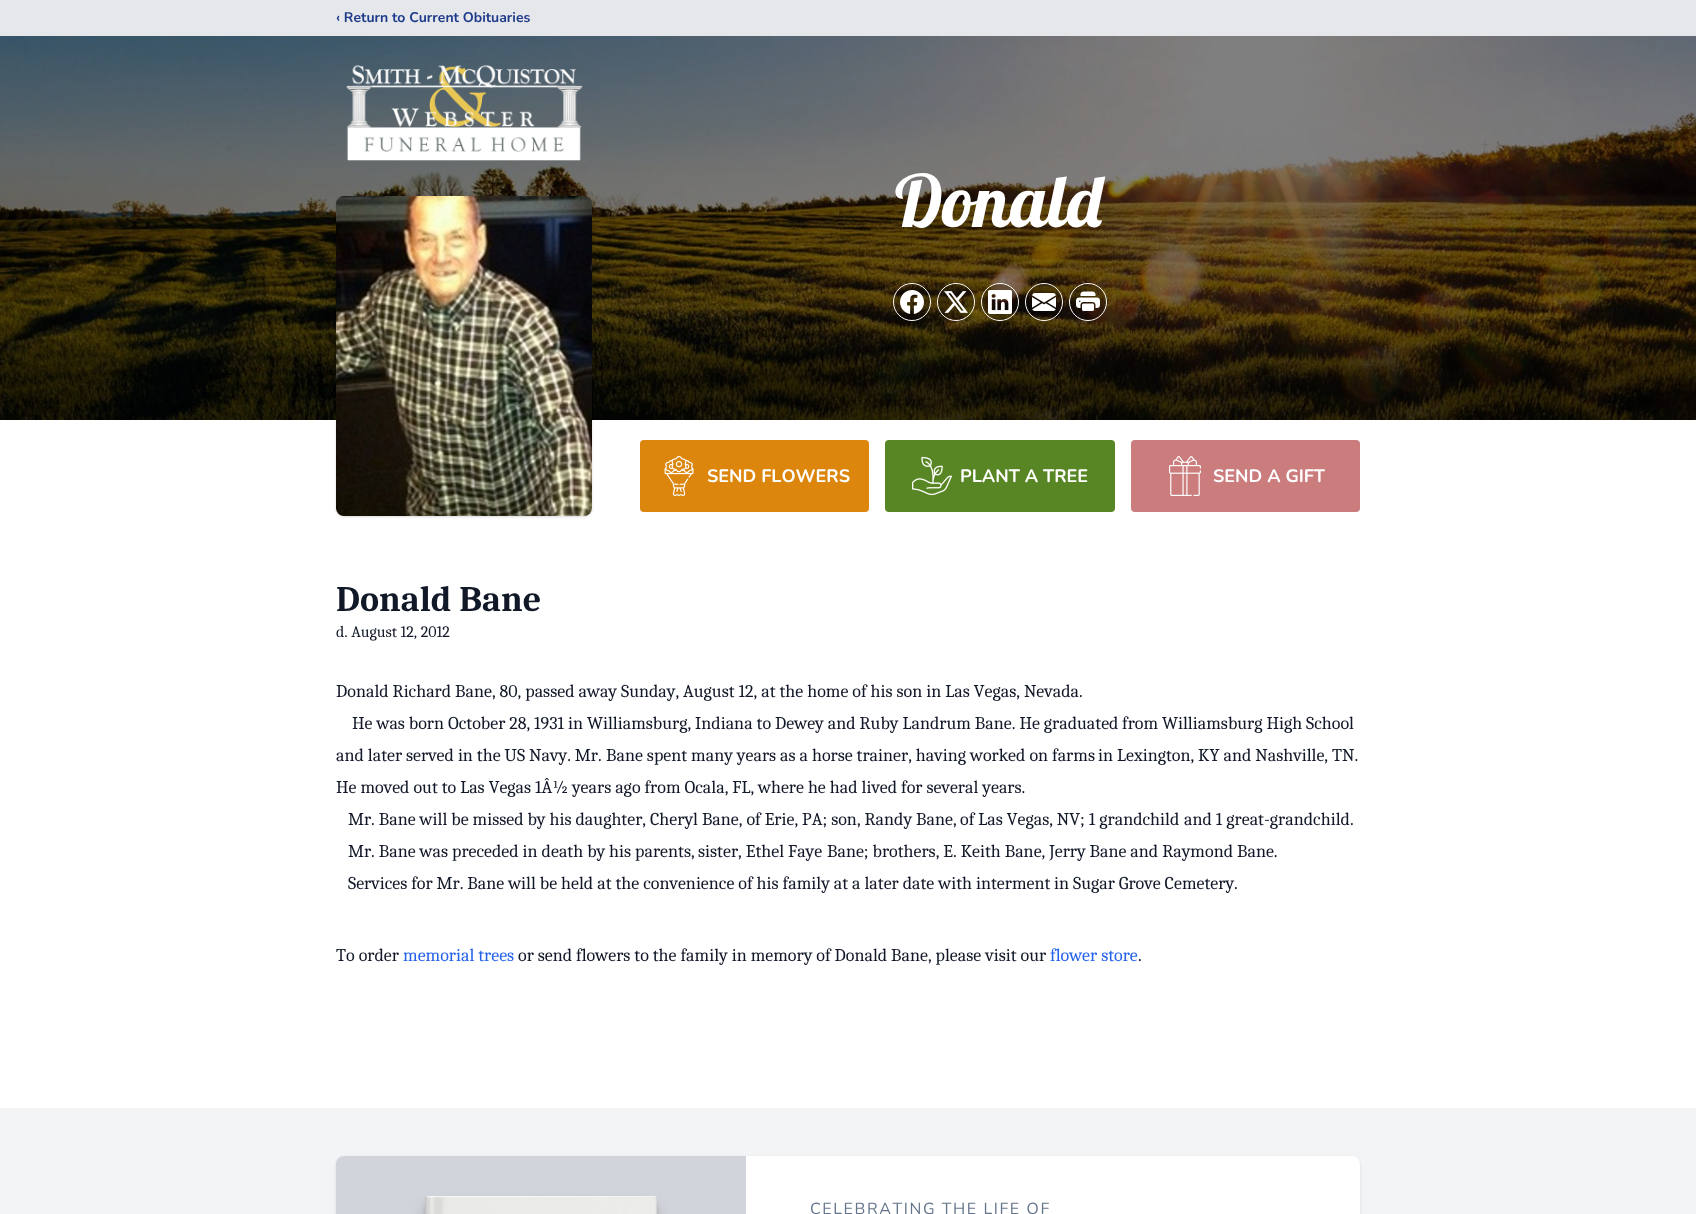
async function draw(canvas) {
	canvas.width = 1696;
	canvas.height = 1214;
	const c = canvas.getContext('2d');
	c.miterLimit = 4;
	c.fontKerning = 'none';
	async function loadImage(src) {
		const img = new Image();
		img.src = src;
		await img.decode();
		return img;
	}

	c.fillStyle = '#fff';
	c.fillRect(0, 0, 1696, 1214);
	c.fillStyle = '#e5e7eb';
	c.fillRect(0, 0, 1696, 36);
	c.font = 'bold 14px Nunito';
	c.fillStyle = '#1e3a8a';
	c.fillText('‹ Return to Current Obituaries', 336, 22);
	c.drawImage(await loadImage('img1.png'), 0, 36, 1696, 384);
	c.drawImage(await loadImage('img2.png'), 346, 65, 237, 96);
	c.fillStyle = '#0000001a';
	c.filter = 'blur(1px)';
	c.beginPath();
	c.roundRect(337, 198, 254, 318, 7);
	c.fill();
	c.filter = 'none';
	c.filter = 'blur(1.5px)';
	c.beginPath();
	c.roundRect(336, 197, 256, 320, 8);
	c.fill();
	c.filter = 'none';
	c.drawImage(await loadImage('img3.png'), 336, 196, 256, 320);
	c.font = '72px Lobster';
	c.fillStyle = '#fff';
	c.fillText('Donald', 895, 227);
	c.beginPath();
	c.arc(912, 302, 18.5, 0, 2 * Math.PI);
	c.strokeStyle = '#fff';
	c.stroke();
	c.fillStyle = '#00000033';
	c.beginPath();
	c.arc(912, 302, 18, 0, 2 * Math.PI);
	c.fill();
	c.drawImage(await loadImage('img4.png'), 900, 290, 24, 24);
	c.beginPath();
	c.arc(956, 302, 18.5, 0, 2 * Math.PI);
	c.stroke();
	c.beginPath();
	c.arc(956, 302, 18, 0, 2 * Math.PI);
	c.fill();
	c.drawImage(await loadImage('img5.png'), 944, 291, 24, 22);
	c.beginPath();
	c.arc(1000, 302, 18.5, 0, 2 * Math.PI);
	c.stroke();
	c.beginPath();
	c.arc(1000, 302, 18, 0, 2 * Math.PI);
	c.fill();
	c.drawImage(await loadImage('img6.png'), 988, 290, 24, 24);
	c.beginPath();
	c.arc(1044, 302, 18.5, 0, 2 * Math.PI);
	c.stroke();
	c.beginPath();
	c.arc(1044, 302, 18, 0, 2 * Math.PI);
	c.fill();
	c.drawImage(await loadImage('img7.png'), 1032, 293, 24, 18);
	c.beginPath();
	c.arc(1088, 302, 18.5, 0, 2 * Math.PI);
	c.stroke();
	c.beginPath();
	c.arc(1088, 302, 18, 0, 2 * Math.PI);
	c.fill();
	c.drawImage(await loadImage('img8.png'), 1076, 291, 24, 20);
	c.fillStyle = '#dc860d';
	c.beginPath();
	c.roundRect(640, 440, 229, 72, 4);
	c.fill();
	c.drawImage(await loadImage('img9.png'), 664, 456, 30, 40);
	c.font = 'bold 18px Nunito';
	c.fillStyle = '#fff';
	c.fillText('SEND FLOWERS', 707, 482);
	c.fillStyle = '#588624';
	c.beginPath();
	c.roundRect(885, 440, 230, 72, 4);
	c.fill();
	c.drawImage(await loadImage('img10.png'), 912, 456, 40, 40);
	c.fillStyle = '#fff';
	c.fillText('PLANT A TREE', 960, 482);
	c.fillStyle = '#cb7c7c';
	c.beginPath();
	c.roundRect(1131, 440, 229, 72, 4);
	c.fill();
	c.drawImage(await loadImage('img11.png'), 1169, 456, 32, 40);
	c.fillStyle = '#fff';
	c.fillText('SEND A GIFT', 1213, 482);
	c.font = 'bold 36px Caladea';
	c.fillStyle = '#111827';
	c.fillText('Donald Bane', 336, 611);
	c.font = '16px Caladea';
	c.fillText('d. August 12, 2012', 336, 637);
	c.font = '18px Caladea';
	for (const [text, x, y] of [
		['Donald Richard Bane, 80, passed away Sunday,', 336, 697],
		['August 12, at the home of his son in Las Vegas, Nevada.', 683, 697],
		['He was born October 28, 1931 in Williamsburg, Indiana to Dewey and Ruby Landrum Bane. He graduated', 352, 729],
		['from Williamsburg High School', 1122, 729],
		['and later served in the US Navy. Mr.', 336, 761],
		['Bane spent many years as a horse trainer, having worked on farms', 606, 761],
		['in Lexington, KY and Nashville, TN.', 1098, 761],
		['He moved out to Las Vegas 1Â½ years ago from Ocala, FL,', 336, 793],
		['where he had lived for several years.', 758, 793],
		['Mr. Bane will be missed by his daughter,', 348, 825],
		['Cheryl Bane, of Erie, PA; son, Randy Bane,', 650, 825],
		['of Las Vegas, NV; 1 grandchild', 960, 825],
		['and 1 great-grandchild.', 1184, 825],
		['Mr. Bane was preceded in death by his parents,', 348, 857],
		['sister, Ethel Faye', 698, 857],
		['Bane; brothers, E. Keith Bane, Jerry Bane and Raymond Bane.', 827, 857],
		['Services for Mr. Bane will be held at the convenience of his family at a later date with interment', 348, 889],
		['in Sugar Grove Cemetery.', 1054, 889],
		['To order', 336, 961],
	]) {
		c.fillText(text, x, y);
	}
	c.fillStyle = '#2563eb';
	c.fillText('memorial trees', 403, 961);
	c.fillStyle = '#111827';
	c.fillText('or send flowers to the family in memory of Donald Bane, please visit our', 518, 961);
	c.fillStyle = '#2563eb';
	c.fillText('flower store', 1050, 961);
	c.fillStyle = '#111827';
	c.fillText('.', 1138, 961);
	c.fillStyle = '#f3f4f6';
	c.fillRect(0, 1108, 1696, 106);
	c.fillStyle = '#0000001a';
	c.filter = 'blur(1.5px)';
	c.beginPath();
	c.roundRect(336, 1157, 1024, 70, 8);
	c.fill();
	c.filter = 'none';
	c.fillStyle = '#fff';
	c.beginPath();
	c.roundRect(336, 1156, 1024, 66, 8);
	c.fill();
	c.fillStyle = '#d1d5db';
	c.beginPath();
	c.moveTo(344, 1156);
	c.lineTo(746, 1156);
	c.lineTo(746, 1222);
	c.lineTo(344, 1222);
	c.bezierCurveTo(339.5, 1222, 336, 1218.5, 336, 1214);
	c.lineTo(336, 1164);
	c.bezierCurveTo(336, 1159.5, 339.5, 1156, 344, 1156);
	c.closePath();
	c.fill();
	c.fillStyle = '#00000059';
	c.filter = 'blur(3px)';
	c.beginPath();
	c.rect(429, 1204, 224, 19);
	c.fill();
	c.filter = 'none';
	c.filter = 'blur(7.5px)';
	c.beginPath();
	c.rect(428, 1209, 226, 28);
	c.fill();
	c.filter = 'none';
	c.drawImage(await loadImage('img12.png'), 425, 1196, 232, 18);
	c.drawImage(await loadImage('img13.png'), 425, 1196, 232, 18);
	c.letterSpacing = '1.6px';
	c.font = '16px Nunito';
	c.fillStyle = '#64748b';
	c.fillText('CELEBRATING THE LIFE OF', 810, 1214);
}

draw(document.querySelector('canvas'));
